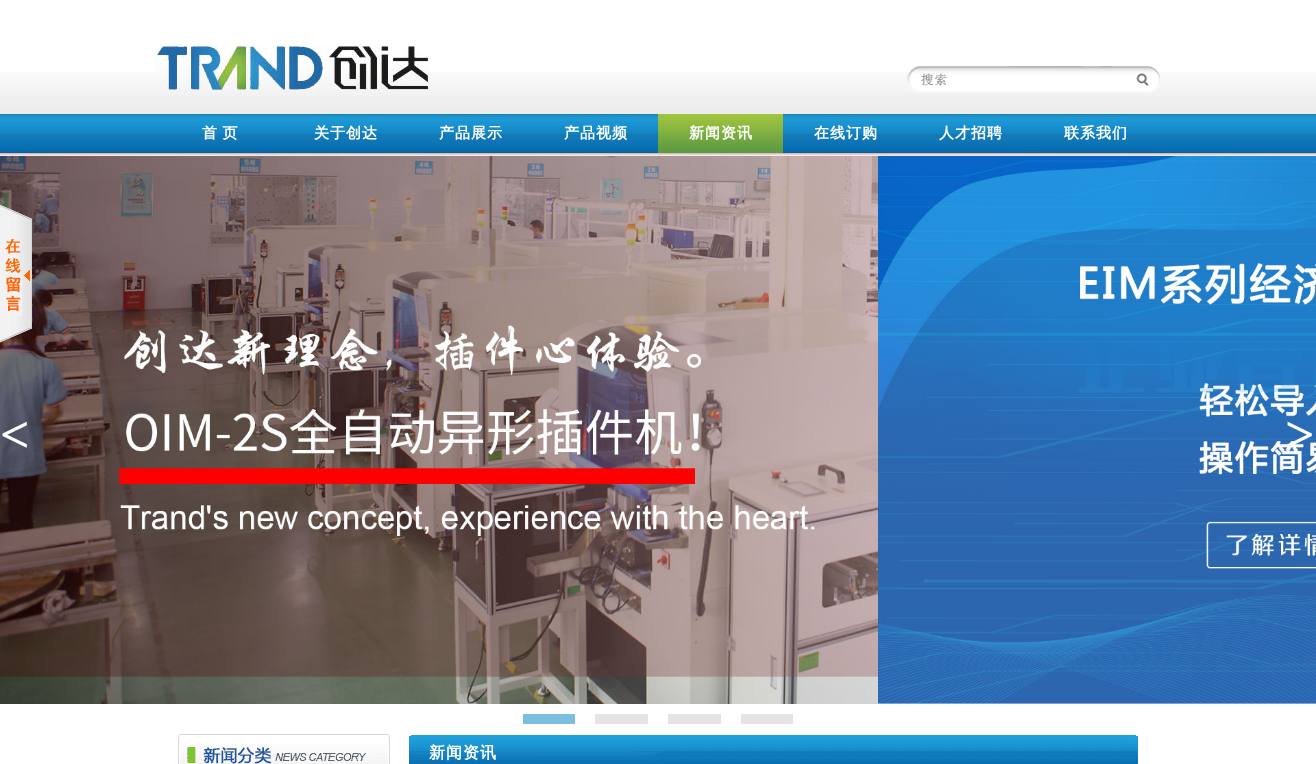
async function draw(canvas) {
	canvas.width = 1316;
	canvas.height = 764;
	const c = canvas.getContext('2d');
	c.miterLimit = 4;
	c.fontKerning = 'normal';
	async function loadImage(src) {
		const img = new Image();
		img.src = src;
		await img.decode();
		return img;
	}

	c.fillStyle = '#fff';
	c.fillRect(0, 0, 1316, 764);
	c.drawImage(await loadImage('img1.png'), 0, 72, 1316, 42);
	c.drawImage(await loadImage('img2.png'), 155, 46, 168, 48);
	c.drawImage(await loadImage('img3.png'), 325, 46, 104, 48);
	c.drawImage(await loadImage('img4.png'), 906, 66, 229, 27);
	c.drawImage(await loadImage('img5.png'), 1135, 66, 25, 27);
	c.drawImage(await loadImage('img6.png'), 0, 114, 1316, 42);
	c.letterSpacing = '1px';
	c.wordSpacing = '-1px';
	c.font = 'bold 15px WenQuanYi Zen Hei';
	c.fillText('首 页', 202, 138);
	c.wordSpacing = '0px';
	for (const [text, x, y] of [
		['关于创达', 314, 138],
		['产品展示', 439, 138],
		['产品视频', 564, 138],
	]) {
		c.fillText(text, x, y);
	}
	c.drawImage(await loadImage('img7.png'), 658, 114, 125, 39);
	for (const [text, x, y] of [
		['新闻资讯', 689, 138],
		['在线订购', 814, 138],
		['人才招聘', 939, 138],
		['联系我们', 1064, 138],
	]) {
		c.fillText(text, x, y);
	}
	c.drawImage(await loadImage('img9.png'), 0, 156, 878, 548);
	c.drawImage(await loadImage('img8.png'), 0, 204, 32, 139);
	c.drawImage(await loadImage('img10.png'), 878, 156, 438, 548);
	c.font = 'bold 52px Liberation Serif';
	c.fillText('<', 0, 452);
	c.fillText('>', 1285, 452);
	for (const [x, y, w, h, color] of [
		[523, 714, 52, 10, '#7bbedf'],
		[595, 714, 53, 10, '#e4e4e4'],
		[668, 714, 53, 10, '#e4e4e4'],
		[741, 714, 52, 10, '#e4e4e4'],
	]) {
		c.fillStyle = color;
		c.fillRect(x, y, w, h);
	}
	c.drawImage(await loadImage('img11.png'), 178, 734, 212, 30);
	c.drawImage(await loadImage('img12.png'), 409, 735, 729, 29);
	c.font = 'bold 16px WenQuanYi Zen Hei';
	c.fillStyle = '#fff';
	c.fillText('新闻资讯', 429, 758);
}

draw(document.querySelector('canvas'));
